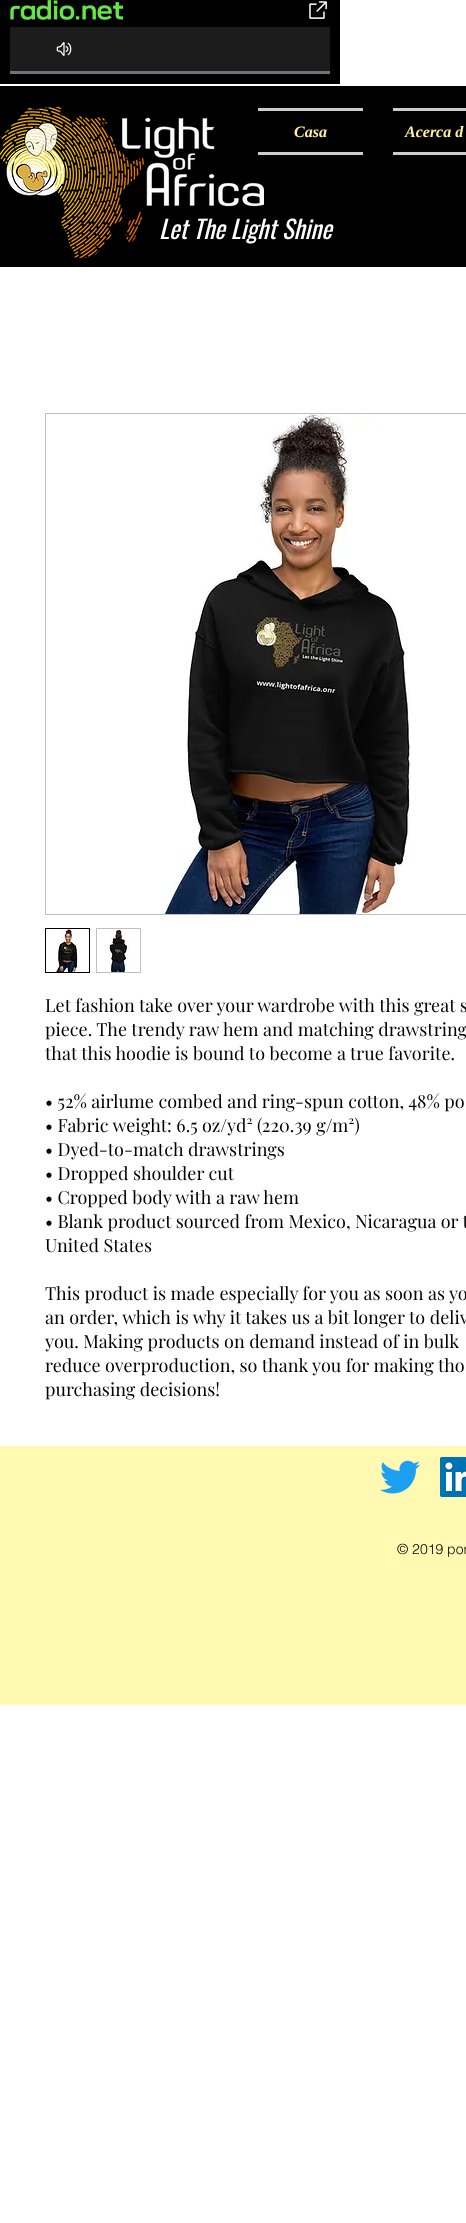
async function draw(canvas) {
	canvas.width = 466;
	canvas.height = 2223;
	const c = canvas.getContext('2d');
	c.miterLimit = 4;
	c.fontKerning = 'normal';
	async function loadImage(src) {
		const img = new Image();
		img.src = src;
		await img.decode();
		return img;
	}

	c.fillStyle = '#fff';
	c.fillRect(0, 0, 466, 2223);
	c.fillStyle = '#000';
	c.fillRect(0, 0, 340, 84);
	c.drawImage(await loadImage('img1.png'), 10, 0, 113, 20);
	c.drawImage(await loadImage('img2.png'), 309, 1, 18, 18);
	c.fillStyle = '#1c1c1c';
	c.fillRect(10, 27, 320, 44);
	c.drawImage(await loadImage('img3.png'), 56, 42, 16, 14);
	for (const [x, y, w, h, color] of [
		[10, 71, 320, 3, '#6e737c'],
		[0, 86, 466, 181, '#000'],
		[258, 108, 105, 3, '#ccc'],
		[258, 152, 105, 3, '#ccc'],
	]) {
		c.fillStyle = color;
		c.fillRect(x, y, w, h);
	}
	c.font = 'italic 25px Oswald';
	c.fillStyle = '#fff';
	c.fillText('Let The Light Shine', 159, 239);
	c.drawImage(await loadImage('img4.png'), 0, 107, 264, 151);
	c.font = 'italic bold 16px Liberation Serif';
	c.fillStyle = '#ffef98';
	c.fillText('Casa', 294, 137);
	c.fillStyle = '#ccc';
	c.fillRect(393, 108, 73, 3);
	c.fillRect(393, 152, 73, 3);
	c.fillStyle = '#ffef98';
	c.fillText('Acerca d', 405, 137);
	c.strokeStyle = '#bfbfbf';
	c.strokeRect(45.5, 413.5, 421, 501);
	c.drawImage(await loadImage('img5.png'), 163, 414, 247, 500);
	c.strokeStyle = '#000';
	c.strokeRect(45.5, 928.5, 44, 44);
	c.drawImage(await loadImage('img6.png'), 54, 929, 24, 43);
	c.strokeStyle = '#bfbfbf';
	c.strokeRect(96.5, 928.5, 44, 44);
	c.drawImage(await loadImage('img7.png'), 109, 929, 20, 43);
	c.font = '18px Playfair Display';
	c.fillStyle = '#000';
	for (const [text, x, y] of [
		['Let fashion take over your wardrobe with this great s', 45, 1012],
		['piece. The trendy raw hem and matching drawstring', 45, 1036],
		['that this hoodie is bound to become a true favorite.', 45, 1060],
		['• 52% airlume combed and ring-spun cotton, 48% po', 45, 1108],
		['• Fabric weight: 6.5 oz/yd² (220.39 g/m²)', 45, 1132],
		['• Dyed-to-match drawstrings', 45, 1156],
		['• Dropped shoulder cut', 45, 1180],
		['• Cropped body with a raw hem', 45, 1204],
		['• Blank product sourced from Mexico, Nicaragua or t', 45, 1228],
		['United States', 45, 1252],
		['This product is made especially for you as soon as yo', 45, 1300],
		['an order, which is why it takes us a bit longer to deliv', 45, 1324],
		['you. Making products on demand instead of in bulk', 45, 1348],
		['reduce overproduction, so thank you for making tho', 45, 1372],
		['purchasing decisions!', 45, 1396],
	]) {
		c.fillText(text, x, y);
	}
	c.fillStyle = '#fff9b1';
	c.fillRect(0, 1446, 466, 259);
	c.drawImage(await loadImage('img8.png'), 380, 1460, 40, 34);
	c.drawImage(await loadImage('img9.png'), 440, 1457, 26, 40);
	c.font = '300 14px helvetica';
	c.fillStyle = '#000';
	c.fillText('© 2019 por', 397, 1554);
}

draw(document.querySelector('canvas'));
